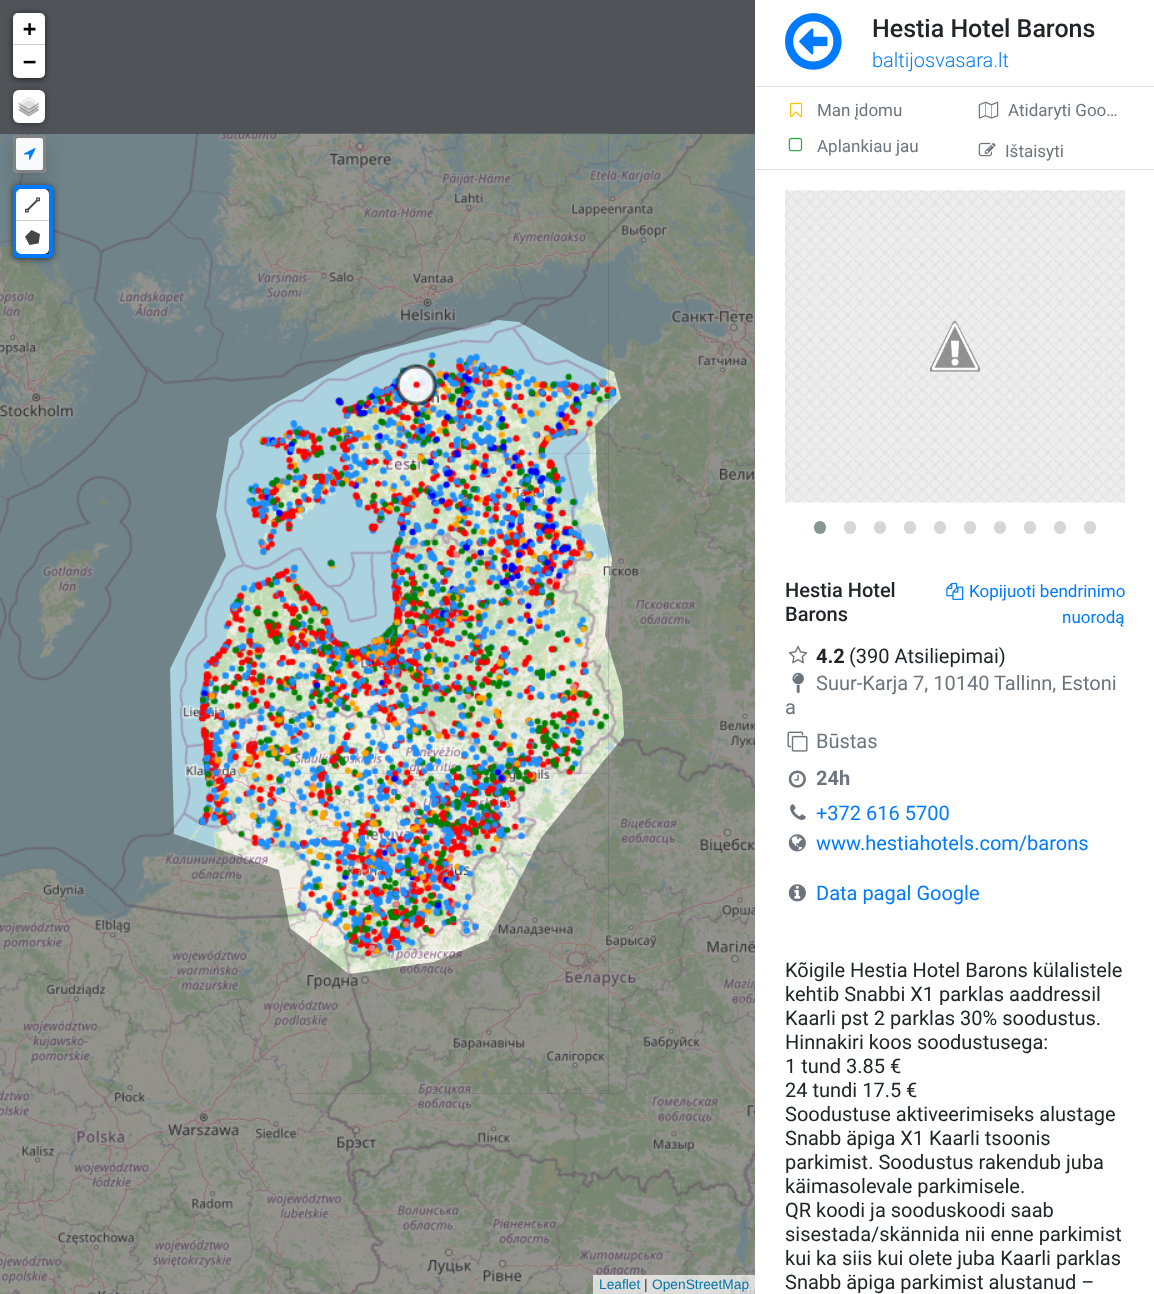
async function draw(canvas) {
	canvas.width = 1154;
	canvas.height = 1294;
	const c = canvas.getContext('2d');
	c.miterLimit = 4;
	c.fontKerning = 'normal';
	async function loadImage(src) {
		const img = new Image();
		img.src = src;
		await img.decode();
		return img;
	}

	c.fillStyle = '#fff';
	c.fillRect(0, 0, 1154, 1294);
	c.fillStyle = '#6c757d';
	c.fillRect(0, 0, 755, 1094);
	c.drawImage(await loadImage('img6.png'), 289, 453, 320, 321);
	c.drawImage(await loadImage('img3.png'), 288, 133, 321, 321);
	c.drawImage(await loadImage('img2.png'), 0, 134, 289, 320);
	c.drawImage(await loadImage('img4.png'), 609, 134, 146, 320);
	c.drawImage(await loadImage('img5.png'), 0, 454, 289, 320);
	c.drawImage(await loadImage('img7.png'), 609, 454, 146, 320);
	c.drawImage(await loadImage('img8.png'), 0, 774, 289, 320);
	c.drawImage(await loadImage('img9.png'), 289, 773, 320, 321);
	c.drawImage(await loadImage('img10.png'), 609, 774, 146, 320);
	c.drawImage(await loadImage('img1.png'), 198, 351, 419, 606);
	c.drawImage(await loadImage('img11.png'), 0, 1094, 289, 200);
	c.drawImage(await loadImage('img12.png'), 289, 1094, 320, 200);
	c.drawImage(await loadImage('img13.png'), 609, 1094, 146, 200);
	c.save();
	c.beginPath();
	c.rect(0, 0, 755, 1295);
	c.clip();
	c.fillStyle = '#33333380';
	c.beginPath();
	c.moveTo(835, 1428);
	c.lineTo(-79, 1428);
	c.lineTo(-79, -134);
	c.lineTo(835, -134);
	c.closePath();
	c.moveTo(270, 406);
	c.lineTo(229, 438);
	c.lineTo(216, 516);
	c.lineTo(226, 556);
	c.lineTo(170, 669);
	c.lineTo(174, 834);
	c.lineTo(279, 870);
	c.lineTo(290, 928);
	c.lineTo(349, 974);
	c.lineTo(434, 962);
	c.lineTo(488, 940);
	c.lineTo(541, 838);
	c.lineTo(624, 736);
	c.lineTo(622, 690);
	c.lineTo(605, 635);
	c.lineTo(612, 559);
	c.lineTo(598, 500);
	c.lineTo(595, 426);
	c.lineTo(621, 398);
	c.lineTo(614, 372);
	c.lineTo(582, 358);
	c.lineTo(519, 322);
	c.lineTo(498, 320);
	c.lineTo(361, 356);
	c.closePath();
	c.fill('evenodd');
	c.restore();
	c.fillStyle = '#000000a6';
	c.filter = 'blur(3px)';
	c.beginPath();
	c.roundRect(13, 14, 32, 65, 5);
	c.fill();
	c.filter = 'none';
	c.fillStyle = '#fff';
	c.beginPath();
	c.roundRect(13, 13, 32, 32, [5, 5, 0, 0]);
	c.fill();
	c.fillStyle = '#ccc';
	c.fillRect(13, 44, 32, 1);
	c.font = 'bold 22px DejaVu Sans Mono';
	c.fillStyle = '#000';
	c.fillText('+', 23, 36);
	c.fillStyle = '#fff';
	c.beginPath();
	c.roundRect(13, 45, 32, 33, [0, 0, 5, 5]);
	c.fill();
	c.fillStyle = '#000';
	c.fillText('−', 23, 69);
	c.fillStyle = '#00000066';
	c.filter = 'blur(3px)';
	c.beginPath();
	c.roundRect(13, 91, 32, 33, 6);
	c.fill();
	c.filter = 'none';
	c.fillStyle = '#fff';
	c.beginPath();
	c.roundRect(13, 90, 32, 33, 6);
	c.fill();
	c.drawImage(await loadImage('img14.png'), 18, 97, 21, 20);
	c.fillStyle = '#00000026';
	c.filter = 'blur(10px)';
	c.beginPath();
	c.roundRect(13, 145, 33, 38, 5);
	c.fill();
	c.filter = 'none';
	c.fillStyle = '#f8f9fa';
	c.beginPath();
	c.roundRect(13, 135, 33, 38, 5);
	c.fill();
	c.beginPath();
	c.roundRect(14.5, 136.5, 30, 35, 3.5);
	c.strokeStyle = '#646464cc';
	c.lineWidth = 3;
	c.stroke();
	c.drawImage(await loadImage('img15.png'), 23, 148, 13, 12);
	c.fillStyle = '#000000a6';
	c.filter = 'blur(3px)';
	c.beginPath();
	c.roundRect(13, 186, 40, 73, 5);
	c.fill();
	c.filter = 'none';
	c.beginPath();
	c.roundRect(15, 187, 36, 69, 3);
	c.strokeStyle = '#007bff';
	c.lineWidth = 4;
	c.stroke();
	c.fillStyle = '#fff';
	c.beginPath();
	c.roundRect(16, 189, 33, 31, [5, 5, 0, 0]);
	c.fill();
	c.drawImage(await loadImage('img16.png'), 25, 197, 15, 16);
	c.fillStyle = '#ccc';
	c.fillRect(16, 220, 33, 1);
	c.fillStyle = '#fff';
	c.beginPath();
	c.roundRect(16, 221, 33, 33, [0, 0, 5, 5]);
	c.fill();
	c.drawImage(await loadImage('img17.png'), 25, 230, 15, 15);
	c.fillStyle = '#ffffffb3';
	c.fillRect(593, 1275, 162, 19);
	c.font = '13.75px Liberation Sans';
	c.fillStyle = '#0078a8';
	c.fillText('Leaflet', 599, 1289);
	c.fillStyle = '#333';
	c.fillText('|', 644, 1289);
	c.fillStyle = '#0078a8';
	c.fillText('OpenStreetMap', 652, 1289);
	c.fillStyle = '#dee2e6';
	c.fillRect(755, 86, 399, 1);
	c.drawImage(await loadImage('img18.png'), 785, 13, 57, 57);
	c.font = '500 25px Roboto';
	c.fillStyle = '#212529';
	c.fillText('Hestia Hotel Barons', 872, 37);
	c.font = '300 20px Roboto';
	c.fillStyle = '#007bff';
	c.fillText('baltijosvasara.lt', 872, 67);
	c.fillStyle = '#dee2e6';
	c.fillRect(755, 169, 399, 1);
	c.drawImage(await loadImage('img19.png'), 790, 102, 13, 16);
	c.font = '17px Roboto';
	c.fillStyle = '#6c757d';
	c.fillText('Man įdomu', 817, 116);
	c.drawImage(await loadImage('img20.png'), 788, 137, 15, 15);
	c.fillText('Aplankiau jau', 817, 152);
	c.drawImage(await loadImage('img21.png'), 978, 101, 21, 18);
	c.fillText('Atidaryti Goo…', 1008, 116);
	c.drawImage(await loadImage('img22.png'), 978, 142, 18, 15);
	c.fillText('Ištaisyti', 1005, 157);
	c.drawImage(await loadImage('img23.png'), 785, 190, 340, 313);
	c.drawImage(await loadImage('img24.png'), 930, 320, 50, 52);
	c.fillStyle = '#869791';
	c.beginPath();
	c.roundRect(814, 521, 12, 13, 6);
	c.fill();
	c.fillStyle = '#d6d6d6';
	c.beginPath();
	c.roundRect(844, 521, 12, 13, 6);
	c.fill();
	c.beginPath();
	c.roundRect(874, 521, 12, 13, 6);
	c.fill();
	c.beginPath();
	c.roundRect(904, 521, 12, 13, 6);
	c.fill();
	c.beginPath();
	c.roundRect(934, 521, 12, 13, 6);
	c.fill();
	c.beginPath();
	c.roundRect(964, 521, 12, 13, 6);
	c.fill();
	c.beginPath();
	c.roundRect(994, 521, 12, 13, 6);
	c.fill();
	c.beginPath();
	c.roundRect(1024, 521, 12, 13, 6);
	c.fill();
	c.beginPath();
	c.roundRect(1054, 521, 12, 13, 6);
	c.fill();
	c.beginPath();
	c.roundRect(1084, 521, 12, 13, 6);
	c.fill();
	c.font = '500 20px Roboto';
	c.fillStyle = '#212529';
	c.fillText('Hestia Hotel', 785, 597);
	c.fillText('Barons', 785, 621);
	c.drawImage(await loadImage('img25.png'), 946, 582, 18, 18);
	c.font = '17px Roboto';
	c.fillStyle = '#007bff';
	c.fillText('Kopijuoti bendrinimo', 969, 597);
	c.fillText('nuorodą', 1062, 623);
	c.drawImage(await loadImage('img26.png'), 788, 645, 20, 19);
	c.font = 'bold 20px Roboto';
	c.fillStyle = '#212529';
	c.fillText('4.2', 816, 663);
	c.font = '20px Roboto';
	c.fillText('(390 Atsiliepimai)', 849, 663);
	c.drawImage(await loadImage('img27.png'), 792, 672, 12, 21);
	c.fillStyle = '#6c757d';
	c.fillText('Suur-Karja 7, 10140 Tallinn, Estoni', 816, 690);
	c.fillText('a', 785, 714);
	c.drawImage(await loadImage('img28.png'), 787, 731, 21, 21);
	c.fillText('Būstas', 816, 748);
	c.drawImage(await loadImage('img29.png'), 788, 770, 18, 18);
	c.font = 'bold 20px Roboto';
	c.fillText('24h', 816, 785);
	c.drawImage(await loadImage('img30.png'), 790, 804, 16, 16);
	c.font = '20px Roboto';
	c.fillStyle = '#007bff';
	c.fillText('+372 616 5700', 816, 820);
	c.drawImage(await loadImage('img31.png'), 788, 834, 18, 18);
	c.fillText('www.hestiahotels.com/barons', 816, 850);
	c.drawImage(await loadImage('img32.png'), 788, 884, 18, 18);
	c.fillText('Data pagal Google', 816, 900);
	c.fillStyle = '#212529';
	for (const [text, x, y] of [
		['Kõigile Hestia Hotel Barons külalistele', 785, 977],
		['kehtib Snabbi X1 parklas aaddressil', 785, 1001],
		['Kaarli pst 2 parklas 30% soodustus.', 785, 1025],
		['Hinnakiri koos soodustusega:', 785, 1049],
		['1 tund 3.85 €', 785, 1073],
		['24 tundi 17.5 €', 785, 1097],
		['Soodustuse aktiveerimiseks alustage', 785, 1121],
		['Snabb äpiga X1 Kaarli tsoonis', 785, 1145],
		['parkimist. Soodustus rakendub juba', 785, 1169],
		['käimasolevale parkimisele.', 785, 1193],
		['QR koodi ja sooduskoodi saab', 785, 1217],
		['sisestada/skännida nii enne parkimist', 785, 1241],
		['kui ka siis kui olete juba Kaarli parklas', 785, 1265],
		['Snabb äpiga parkimist alustanud –', 785, 1289],
	]) {
		c.fillText(text, x, y);
	}
}

draw(document.querySelector('canvas'));
